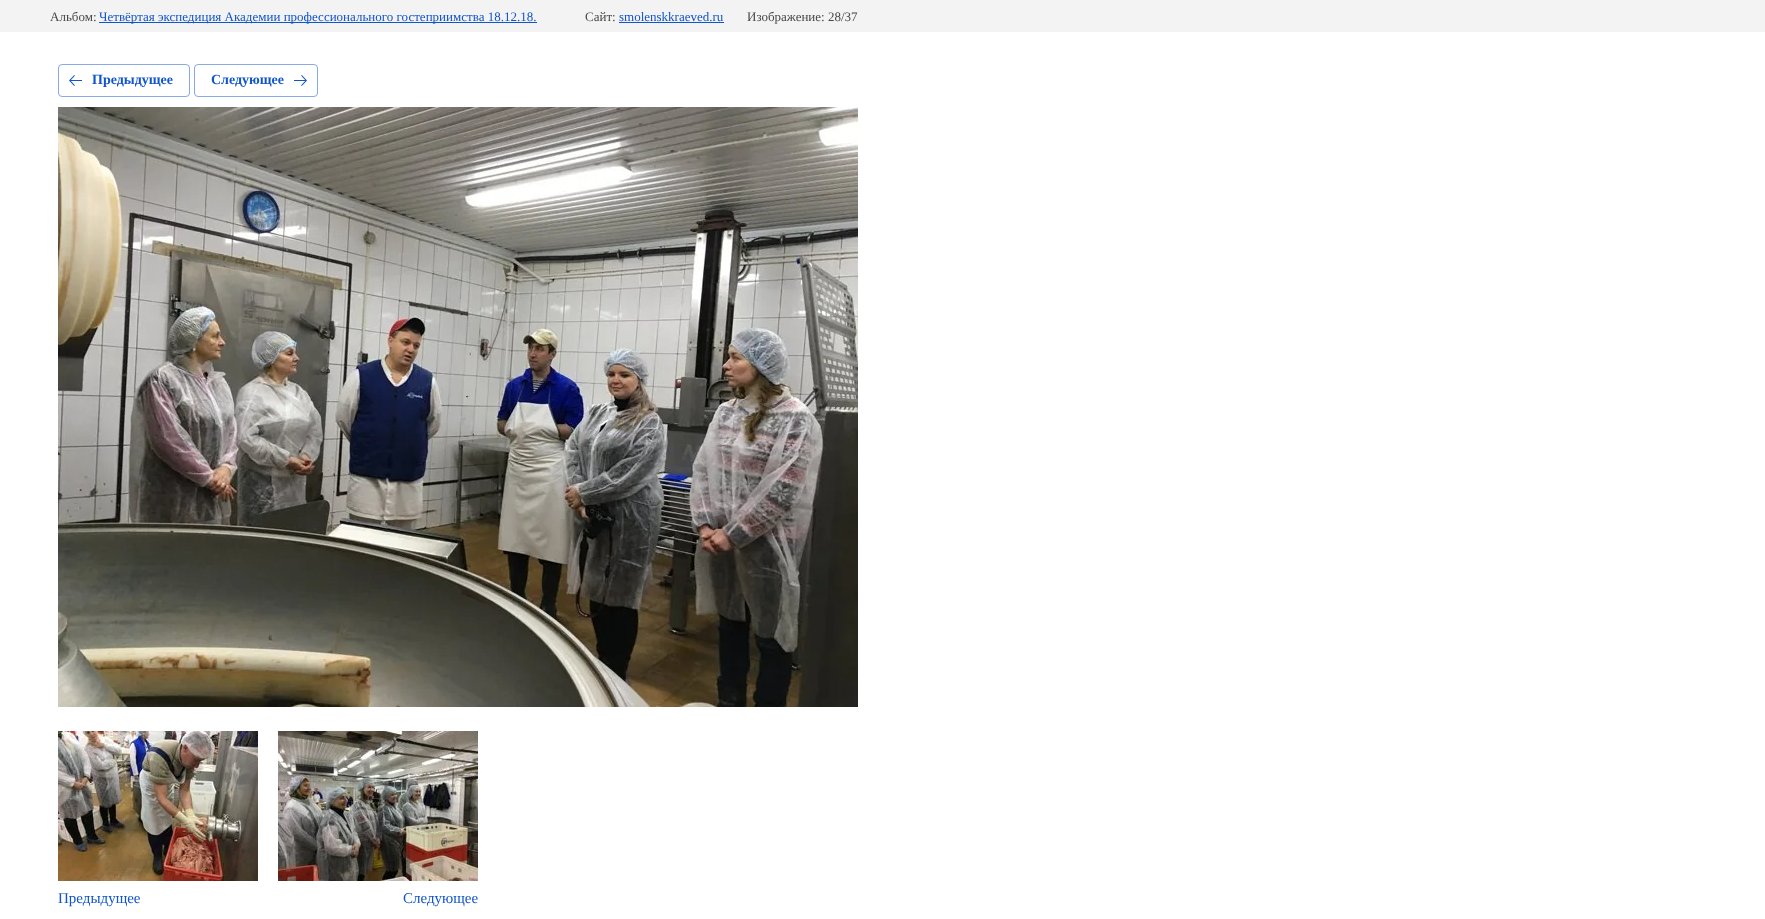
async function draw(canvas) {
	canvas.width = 1765;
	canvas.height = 919;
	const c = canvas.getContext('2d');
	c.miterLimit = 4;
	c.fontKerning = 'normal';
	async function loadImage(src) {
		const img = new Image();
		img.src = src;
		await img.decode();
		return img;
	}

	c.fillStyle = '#fff';
	c.fillRect(0, 0, 1765, 919);
	c.fillStyle = '#f3f3f3';
	c.fillRect(0, 0, 1765, 32);
	c.font = '13px Liberation Serif';
	c.fillStyle = '#484848';
	c.fillText('Альбом:', 50, 21);
	c.fillStyle = '#15c';
	c.fillRect(99, 22, 438, 1);
	c.fillText('Четвёртая экспедиция Академии профессионального гостеприимства 18.12.18.', 99, 21);
	c.fillStyle = '#484848';
	c.fillText('Сайт:', 585, 21);
	c.fillStyle = '#15c';
	c.fillText('smolenskkraeved.ru', 619, 21);
	c.fillRect(619, 22, 105, 1);
	c.fillStyle = '#484848';
	c.fillText('Изображение: 28/37', 747, 21);
	c.beginPath();
	c.roundRect(58.5, 64.5, 131, 32, 3.5);
	c.strokeStyle = '#88aae6';
	c.stroke();
	c.drawImage(await loadImage('img1.png'), 69, 75, 13, 11);
	c.font = 'bold 14px Liberation Serif';
	c.fillStyle = '#15c';
	c.fillText('Предыдущее', 92, 84);
	c.beginPath();
	c.roundRect(194.5, 64.5, 123, 32, 3.5);
	c.stroke();
	c.fillText('Следующее', 211, 84);
	c.drawImage(await loadImage('img2.png'), 294, 75, 13, 11);
	c.drawImage(await loadImage('img3.png'), 58, 107, 800, 600);
	c.drawImage(await loadImage('img4.png'), 58, 731, 200, 150);
	c.font = '15px Liberation Serif';
	c.fillText('Предыдущее', 58, 903);
	c.drawImage(await loadImage('img5.png'), 278, 731, 200, 150);
	c.fillText('Следующее', 403, 903);
}

draw(document.querySelector('canvas'));
